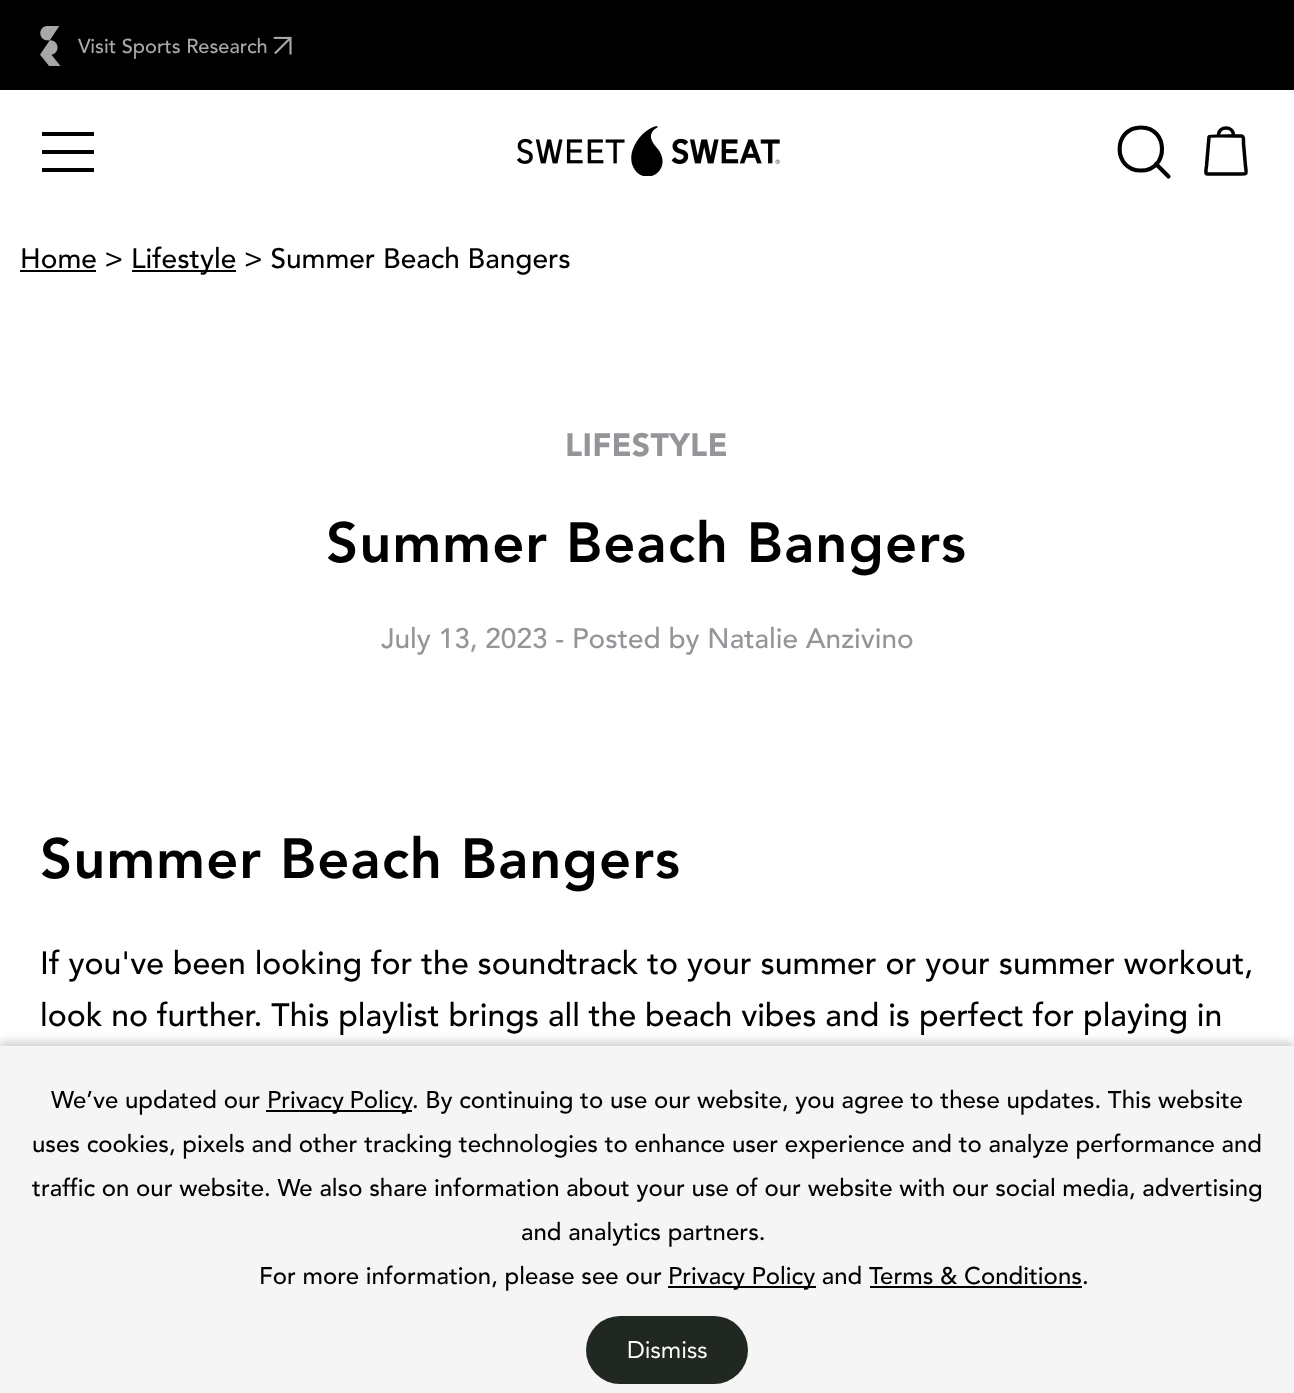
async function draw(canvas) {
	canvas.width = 1294;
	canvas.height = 1393;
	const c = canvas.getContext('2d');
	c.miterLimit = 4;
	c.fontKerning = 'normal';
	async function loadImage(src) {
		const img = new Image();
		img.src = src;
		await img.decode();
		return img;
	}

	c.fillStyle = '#fff';
	c.fillRect(0, 0, 1294, 1393);
	c.fillStyle = '#000';
	c.fillRect(0, 0, 1294, 90);
	c.drawImage(await loadImage('img1.png'), 40, 26, 21, 40);
	c.font = '500 20px Avenir';
	c.fillStyle = '#a7a8aa';
	c.fillText('Visit Sports Research', 78, 53);
	c.drawImage(await loadImage('img2.png'), 273, 36, 19, 19);
	c.fillStyle = '#000';
	c.beginPath();
	c.moveTo(94, 136);
	c.lineTo(42, 136);
	c.lineTo(42, 132);
	c.lineTo(94, 132);
	c.closePath();
	c.moveTo(94, 154);
	c.lineTo(42, 154);
	c.lineTo(42, 150);
	c.lineTo(94, 150);
	c.closePath();
	c.moveTo(42, 172);
	c.lineTo(94, 172);
	c.lineTo(94, 168);
	c.lineTo(42, 168);
	c.closePath();
	c.fill('evenodd');
	c.drawImage(await loadImage('img3.png'), 517, 126, 263, 50);
	c.beginPath();
	c.moveTo(1141, 170.5);
	c.bezierCurveTo(1169, 170.5, 1169, 127.5, 1141, 127.5);
	c.bezierCurveTo(1112.5, 127.5, 1112.5, 170.5, 1141, 170.5);
	c.closePath();
	c.moveTo(1156, 164);
	c.lineTo(1168.5, 176.5);
	c.strokeStyle = '#000';
	c.lineWidth = 4.1;
	c.lineCap = 'round';
	c.lineJoin = 'round';
	c.stroke();
	c.beginPath();
	c.moveTo(1241.5, 136);
	c.bezierCurveTo(1238, 136, 1210.5, 135.5, 1209.5, 136.5);
	c.lineTo(1209, 137);
	c.lineTo(1206.5, 166);
	c.bezierCurveTo(1206, 169.5, 1205, 174, 1207.5, 174);
	c.lineTo(1238.5, 174);
	c.bezierCurveTo(1247.5, 174, 1246.5, 175, 1245.5, 166);
	c.lineTo(1243.5, 143.5);
	c.bezierCurveTo(1243.5, 141, 1244, 136, 1241.5, 136);
	c.closePath();
	c.moveTo(1218.5, 135.5);
	c.bezierCurveTo(1218.5, 125.5, 1233.5, 125.5, 1233.5, 135.5);
	c.lineWidth = 3.5;
	c.stroke();
	c.font = '500 28px Avenir';
	c.fillText('Home >', 20, 268);
	c.fillRect(20, 270, 76, 2);
	c.fillRect(132, 270, 104, 2);
	c.fillText('Lifestyle > Summer Beach Bangers', 131, 268);
	c.letterSpacing = '0.25px';
	c.font = '900 32px Avenir';
	c.fillStyle = '#939598';
	c.fillText('LIFESTYLE', 565, 456);
	c.letterSpacing = '1.1px';
	c.font = '900 56px "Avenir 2"';
	c.fillStyle = '#000';
	c.fillText('Summer Beach Bangers', 326, 562);
	c.letterSpacing = '0px';
	c.font = '500 28px Avenir';
	c.fillStyle = '#939598';
	c.fillText('July 13, 2023 - Posted by Natalie Anzivino', 381, 648);
	c.letterSpacing = '1.1px';
	c.font = '900 56px "Avenir 2"';
	c.fillStyle = '#000';
	c.fillText('Summer Beach Bangers', 40, 878);
	c.letterSpacing = '0px';
	c.font = '500 32px Avenir';
	c.fillText('If you\'ve been looking for the soundtrack to your summer or your summer workout,', 40, 974);
	c.fillText('look no further. This playlist brings all the beach vibes and is perfect for playing in', 40, 1026);
	c.fillStyle = '#00000033';
	c.filter = 'blur(5px)';
	c.beginPath();
	c.rect(0, 1042, 1294, 348);
	c.fill();
	c.filter = 'none';
	c.fillStyle = '#f5f5f5';
	c.fillRect(0, 1046, 1294, 347);
	c.font = '500 24px Avenir';
	c.fillStyle = '#000';
	c.fillText('We’ve updated our', 51, 1108);
	c.fillRect(266, 1110, 146, 2);
	c.wordSpacing = '-1px';
	c.fillText('Privacy Policy', 267, 1108);
	c.wordSpacing = '0px';
	for (const [text, x, y] of [
		['. By continuing to use our website, you agree to these updates. This website', 412, 1108],
		['uses cookies, pixels and other tracking technologies to enhance user experience and to analyze performance and', 32, 1152],
		['traffic on our website. We also share information about your use of our website with our social media, advertising', 32, 1196],
		['and analytics partners.', 521, 1240],
		['For more information, please see our', 259, 1284],
	]) {
		c.fillText(text, x, y);
	}
	c.fillRect(668, 1286, 148, 2);
	c.fillText('Privacy Policy and Terms & Conditions.', 668, 1284);
	c.fillRect(870, 1286, 212, 2);
	c.fillStyle = '#212721';
	c.beginPath();
	c.roundRect(586, 1316, 162, 68, 34);
	c.fill();
	c.font = '24px Avenir';
	c.fillStyle = '#fff';
	c.fillText('Dismiss', 627, 1358);
}

draw(document.querySelector('canvas'));
